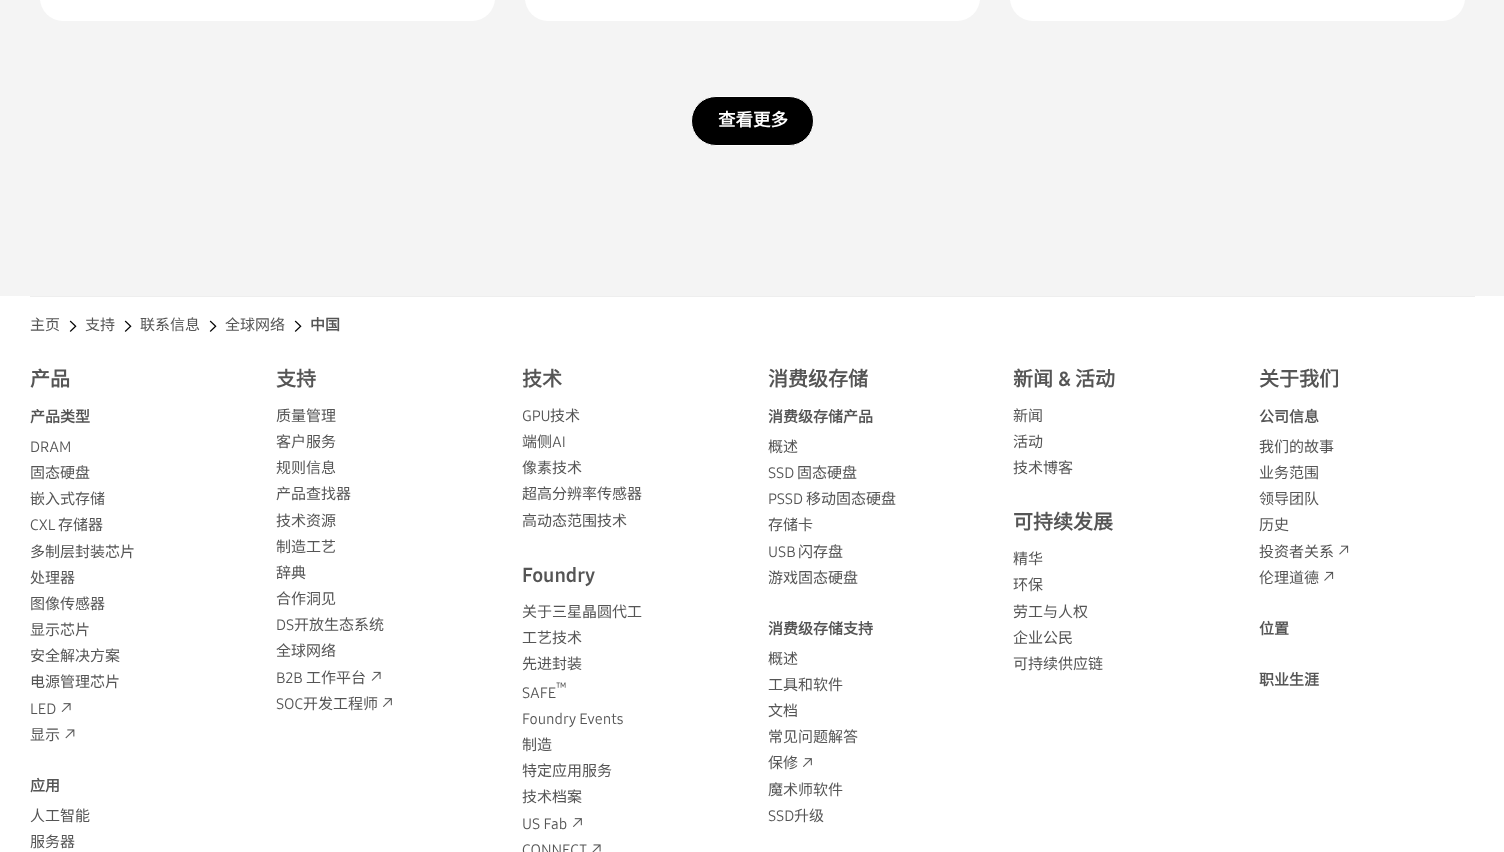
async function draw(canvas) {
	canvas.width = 1504;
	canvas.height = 852;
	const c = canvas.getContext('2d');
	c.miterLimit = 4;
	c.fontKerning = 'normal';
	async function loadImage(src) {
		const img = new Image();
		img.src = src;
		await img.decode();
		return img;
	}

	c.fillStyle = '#fff';
	c.fillRect(0, 0, 1504, 852);
	c.fillStyle = '#f4f4f4';
	c.fillRect(0, 0, 1504, 296);
	c.fillStyle = '#fff';
	c.beginPath();
	c.roundRect(40, -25, 455, 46, 25);
	c.fill();
	c.beginPath();
	c.roundRect(525, -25, 455, 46, 25);
	c.fill();
	c.beginPath();
	c.roundRect(1010, -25, 455, 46, 25);
	c.fill();
	c.fillStyle = '#000';
	c.beginPath();
	c.roundRect(691.5, 96.5, 122, 49, 24.5);
	c.fill();
	c.strokeStyle = '#fff';
	c.stroke();
	c.font = 'bold 17.5px Noto Sans CJK SC';
	c.fillStyle = '#fff';
	c.fillText('查看更多', 718, 126);
	c.fillStyle = '#eee';
	c.fillRect(30, 296, 1445, 1);
	c.font = '15px Noto Sans CJK SC';
	c.fillStyle = '#555';
	c.fillText('主页', 30, 330);
	c.drawImage(await loadImage('img1.png'), 69, 320, 8, 12);
	c.fillText('支持', 85, 330);
	c.drawImage(await loadImage('img1.png'), 124, 320, 8, 12);
	c.fillText('联系信息', 140, 330);
	c.drawImage(await loadImage('img1.png'), 209, 320, 8, 12);
	c.fillText('全球网络', 225, 330);
	c.drawImage(await loadImage('img1.png'), 294, 320, 8, 12);
	c.font = 'bold 15px Noto Sans CJK SC';
	c.fillText('中国', 310, 330);
	c.font = 'bold 20px Noto Sans CJK SC';
	c.fillText('产品', 30, 386);
	c.font = 'bold 15px Noto Sans CJK SC';
	c.fillText('产品类型', 30, 422);
	c.font = '15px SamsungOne';
	c.fillText('DRAM', 30, 452);
	c.font = '15px Noto Sans CJK SC';
	c.fillText('固态硬盘', 30, 478);
	c.fillText('嵌入式存储', 30, 504);
	c.font = '15px SamsungOne';
	c.fillText('CXL', 30, 530);
	c.font = '15px Noto Sans CJK SC';
	for (const [text, x, y] of [
		['存储器', 58, 530],
		['多制层封装芯片', 30, 557],
		['处理器', 30, 583],
		['图像传感器', 30, 609],
		['显示芯片', 30, 635],
		['安全解决方案', 30, 661],
		['电源管理芯片', 30, 687],
	]) {
		c.fillText(text, x, y);
	}
	c.font = '15px SamsungOne';
	c.fillText('LED', 30, 714);
	c.drawImage(await loadImage('img2.png'), 61, 703, 10, 9);
	c.font = '15px Noto Sans CJK SC';
	c.fillText('显示', 30, 740);
	c.drawImage(await loadImage('img3.png'), 65, 729, 10, 10);
	c.font = 'bold 15px Noto Sans CJK SC';
	c.fillText('应用', 30, 791);
	c.font = '15px Noto Sans CJK SC';
	c.fillText('人工智能', 30, 821);
	c.fillText('服务器', 30, 847);
	c.font = 'bold 20px Noto Sans CJK SC';
	c.fillText('支持', 276, 386);
	c.font = '15px Noto Sans CJK SC';
	for (const [text, x, y] of [
		['质量管理', 276, 421],
		['客户服务', 276, 447],
		['规则信息', 276, 473],
		['产品查找器', 276, 499],
		['技术资源', 276, 526],
		['制造工艺', 276, 552],
		['辞典', 276, 578],
		['合作洞见', 276, 604],
	]) {
		c.fillText(text, x, y);
	}
	c.font = '15px SamsungOne';
	c.fillText('DS', 276, 630);
	c.font = '15px Noto Sans CJK SC';
	c.fillText('开放生态系统', 294, 630);
	c.fillText('全球网络', 276, 656);
	c.font = '15px SamsungOne';
	c.fillText('B2B', 276, 683);
	c.font = '15px Noto Sans CJK SC';
	c.fillText('工作平台', 306, 683);
	c.drawImage(await loadImage('img4.png'), 371, 671, 10, 10);
	c.font = '15px SamsungOne';
	c.fillText('SOC', 276, 709);
	c.font = '15px Noto Sans CJK SC';
	c.fillText('开发工程师', 303, 709);
	c.drawImage(await loadImage('img5.png'), 383, 698, 9, 9);
	c.font = 'bold 20px Noto Sans CJK SC';
	c.fillText('技术', 522, 386);
	c.font = '15px SamsungOne';
	c.fillText('GPU', 522, 421);
	c.font = '15px Noto Sans CJK SC';
	c.fillText('技术', 550, 421);
	c.fillText('端侧', 522, 447);
	c.font = '15px SamsungOne';
	c.fillText('AI', 552, 447);
	c.font = '15px Noto Sans CJK SC';
	for (const [text, x, y] of [
		['像素技术', 522, 473],
		['超高分辨率传感器', 522, 499],
		['高动态范围技术', 522, 526],
	]) {
		c.fillText(text, x, y);
	}
	c.font = 'bold 20px SamsungOne';
	c.fillText('Foundry', 522, 582);
	c.font = '15px Noto Sans CJK SC';
	for (const [text, x, y] of [
		['关于三星晶圆代工', 522, 617],
		['工艺技术', 522, 643],
		['先进封装', 522, 669],
	]) {
		c.fillText(text, x, y);
	}
	c.font = '12px SamsungOne';
	c.fillText('™', 556, 691);
	c.font = '15px SamsungOne';
	c.fillText('SAFE', 522, 698);
	c.fillText('Foundry Events', 522, 724);
	c.font = '15px Noto Sans CJK SC';
	for (const [text, x, y] of [
		['制造', 522, 750],
		['特定应用服务', 522, 776],
		['技术档案', 522, 802],
	]) {
		c.fillText(text, x, y);
	}
	c.font = '15px SamsungOne';
	c.fillText('US Fab', 522, 829);
	c.drawImage(await loadImage('img5.png'), 573, 818, 9, 9);
	c.fillText('CONNECT', 522, 855);
	c.drawImage(await loadImage('img6.png'), 592, 844, 9, 8);
	c.font = 'bold 20px Noto Sans CJK SC';
	c.fillText('消费级存储', 768, 386);
	c.font = 'bold 15px Noto Sans CJK SC';
	c.fillText('消费级存储产品', 768, 422);
	c.font = '15px Noto Sans CJK SC';
	c.fillText('概述', 768, 452);
	c.font = '15px SamsungOne';
	c.fillText('SSD', 768, 478);
	c.font = '15px Noto Sans CJK SC';
	c.fillText('固态硬盘', 797, 478);
	c.font = '15px SamsungOne';
	c.fillText('PSSD', 768, 504);
	c.font = '15px Noto Sans CJK SC';
	c.fillText('移动固态硬盘', 806, 504);
	c.fillText('存储卡', 768, 530);
	c.font = '15px SamsungOne';
	c.fillText('USB', 768, 557);
	c.font = '15px Noto Sans CJK SC';
	c.fillText('闪存盘', 798, 557);
	c.fillText('游戏固态硬盘', 768, 583);
	c.font = 'bold 15px Noto Sans CJK SC';
	c.fillText('消费级存储支持', 768, 634);
	c.font = '15px Noto Sans CJK SC';
	for (const [text, x, y] of [
		['概述', 768, 664],
		['工具和软件', 768, 690],
		['文档', 768, 716],
		['常见问题解答', 768, 742],
		['保修', 768, 768],
	]) {
		c.fillText(text, x, y);
	}
	c.drawImage(await loadImage('img5.png'), 803, 758, 9, 9);
	c.fillText('魔术师软件', 768, 795);
	c.font = '15px SamsungOne';
	c.fillText('SSD', 768, 821);
	c.font = '15px Noto Sans CJK SC';
	c.fillText('升级', 794, 821);
	c.font = 'bold 20px Noto Sans CJK SC';
	c.fillText('新闻', 1013, 386);
	c.font = 'bold 20px SamsungOne';
	c.fillText('&', 1058, 386);
	c.font = 'bold 20px Noto Sans CJK SC';
	c.fillText('活动', 1075, 386);
	c.font = '15px Noto Sans CJK SC';
	for (const [text, x, y] of [
		['新闻', 1013, 421],
		['活动', 1013, 447],
		['技术博客', 1013, 473],
	]) {
		c.fillText(text, x, y);
	}
	c.font = 'bold 20px Noto Sans CJK SC';
	c.fillText('可持续发展', 1013, 529);
	c.font = '15px Noto Sans CJK SC';
	for (const [text, x, y] of [
		['精华', 1013, 564],
		['环保', 1013, 590],
		['劳工与人权', 1013, 617],
		['企业公民', 1013, 643],
		['可持续供应链', 1013, 669],
	]) {
		c.fillText(text, x, y);
	}
	c.font = 'bold 20px Noto Sans CJK SC';
	c.fillText('关于我们', 1259, 386);
	c.font = 'bold 15px Noto Sans CJK SC';
	c.fillText('公司信息', 1259, 422);
	c.font = '15px Noto Sans CJK SC';
	for (const [text, x, y] of [
		['我们的故事', 1259, 452],
		['业务范围', 1259, 478],
		['领导团队', 1259, 504],
		['历史', 1259, 530],
		['投资者关系', 1259, 557],
	]) {
		c.fillText(text, x, y);
	}
	c.drawImage(await loadImage('img7.png'), 1339, 545, 10, 10);
	c.fillText('伦理道德', 1259, 583);
	c.drawImage(await loadImage('img8.png'), 1324, 571, 10, 10);
	c.font = 'bold 15px Noto Sans CJK SC';
	c.fillText('位置', 1259, 634);
	c.fillText('职业生涯', 1259, 685);
}

draw(document.querySelector('canvas'));
